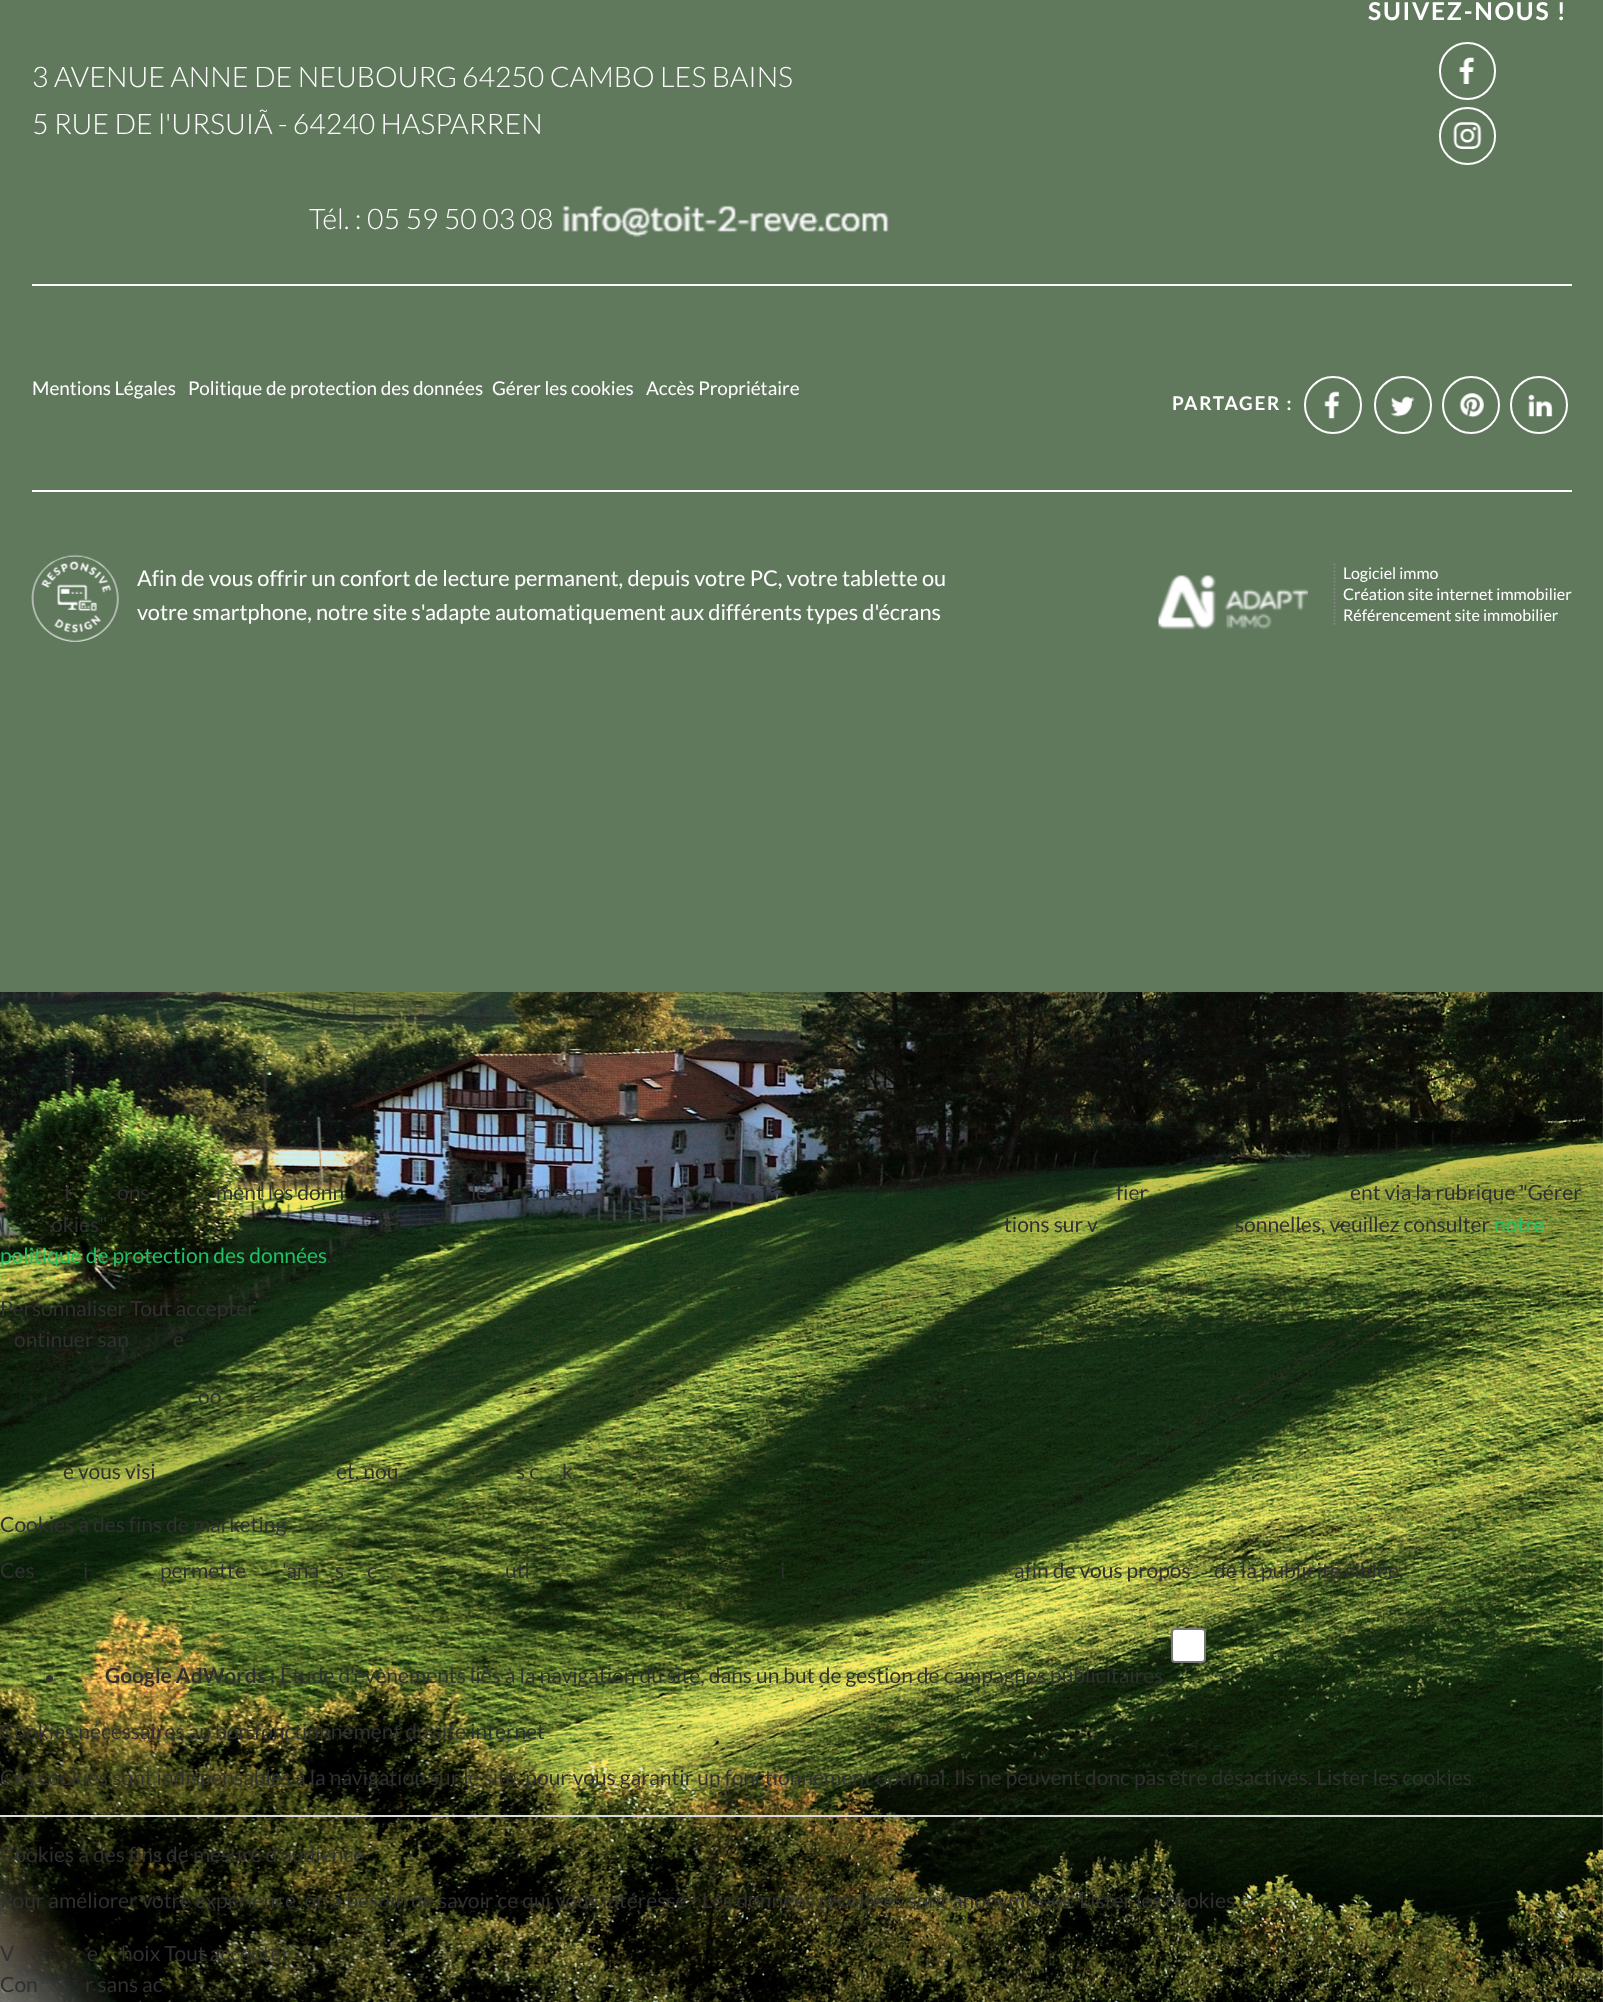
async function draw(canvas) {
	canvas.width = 1603;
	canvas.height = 2002;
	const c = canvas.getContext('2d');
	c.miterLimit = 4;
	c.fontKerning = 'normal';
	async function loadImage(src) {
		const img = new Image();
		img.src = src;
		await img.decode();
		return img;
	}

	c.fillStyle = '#fff';
	c.fillRect(0, 0, 1603, 2002);
	c.fillStyle = '#60795d';
	c.fillRect(0, 0, 1603, 992);
	c.fillStyle = '#fff';
	c.fillRect(32, 284, 1540, 2);
	c.letterSpacing = '1.75px';
	c.font = 'bold 24.5px Lato';
	c.fillText('SUIVEZ-NOUS !', 1368, 20);
	c.beginPath();
	c.roundRect(1440, 43, 55, 56, 27.5);
	c.strokeStyle = '#fff';
	c.lineWidth = 2;
	c.stroke();
	c.drawImage(await loadImage('img1.png'), 1459, 57, 16, 27);
	c.beginPath();
	c.roundRect(1440, 108, 55, 56, 27.5);
	c.stroke();
	c.drawImage(await loadImage('img2.png'), 1453, 122, 29, 27);
	c.letterSpacing = '0px';
	c.font = '300 28.4px Lato';
	for (const [text, x, y] of [
		['3 AVENUE ANNE DE NEUBOURG', 32, 87],
		['64250 CAMBO LES BAINS', 462, 87],
		['5 RUE DE l\'URSUIÃ - 64240 HASPARREN', 32, 134],
		['Tél. : 05 59 50 03 08', 309, 229],
	]) {
		c.fillText(text, x, y);
	}
	c.drawImage(await loadImage('img3.png'), 562, 205, 327, 33);
	c.font = '18.9px Lato';
	for (const [text, x, y] of [
		['Mentions Légales', 32, 395],
		['Politique de protection des données', 188, 395],
		['Gérer les cookies', 492, 395],
		['Accès Propriétaire', 646, 395],
	]) {
		c.fillText(text, x, y);
	}
	c.letterSpacing = '1.75px';
	c.font = 'bold 18.9px Lato';
	c.fillText('PARTAGER :', 1172, 410);
	c.beginPath();
	c.arc(1333, 405, 28, 0, 2 * Math.PI);
	c.stroke();
	c.drawImage(await loadImage('img4.png'), 1324, 391, 16, 28);
	c.beginPath();
	c.arc(1403, 405, 28, 0, 2 * Math.PI);
	c.stroke();
	c.drawImage(await loadImage('img5.png'), 1390, 396, 25, 21);
	c.beginPath();
	c.arc(1471, 405, 28, 0, 2 * Math.PI);
	c.stroke();
	c.drawImage(await loadImage('img6.png'), 1459, 393, 25, 25);
	c.beginPath();
	c.arc(1539, 405, 28, 0, 2 * Math.PI);
	c.stroke();
	c.drawImage(await loadImage('img7.png'), 1528, 394, 25, 23);
	c.fillRect(32, 490, 1540, 2);
	c.drawImage(await loadImage('img8.png'), 31, 554, 88, 88);
	c.letterSpacing = '0px';
	c.font = '21.75px Lato';
	c.fillText('Afin de vous offrir un confort de lecture permanent, depuis votre PC, votre tablette ou', 137, 586);
	c.fillText('votre smartphone, notre site s\'adapte automatiquement aux différents types d\'écrans', 137, 620);
	c.drawImage(await loadImage('img9.png'), 1158, 575, 150, 55);
	c.beginPath();
	c.moveTo(1334.5, 563.5);
	c.lineTo(1334.5, 626.5);
	c.strokeStyle = '#838383';
	c.lineWidth = 1.8;
	c.setLineDash([1.75, 1.75]);
	c.stroke();
	c.font = '16px Lato';
	for (const [text, x, y] of [
		['Logiciel immo', 1343, 579],
		['Création site internet immobilier', 1343, 600],
		['Référencement site immobilier', 1343, 621],
	]) {
		c.fillText(text, x, y);
	}
	c.drawImage(await loadImage('img10.png'), 0, 992, 1603, 1010);
	c.font = '21px Lato';
	c.fillStyle = '#303030';
	for (const [text, x, y] of [
		['t', 64, 1200],
		['ons', 117, 1200],
		['ment les donn', 216, 1200],
		['le', 471, 1200],
		['r lesq', 535, 1200],
		['fier', 1116, 1200],
		['ent via la rubrique "Gérer', 1350, 1200],
		['l', 0, 1232],
		['okies"', 51, 1232],
		['tions sur v', 1004, 1232],
		['sonnelles, veuillez consulter', 1235, 1232],
	]) {
		c.fillText(text, x, y);
	}
	c.fillStyle = '#21c064';
	c.fillText('notre', 1494, 1232);
	c.fillText('politique de protection des données', 0, 1263);
	c.fillStyle = '#303030';
	for (const [text, x, y] of [
		['.', 327, 1263],
		['Personnaliser Tout accepter', 0, 1316],
		['ontinuer san', 14, 1347],
		['e', 173, 1347],
		['oo', 198, 1404],
		['e vous visi', 63, 1479],
		['et, nou', 336, 1479],
		['s c', 516, 1479],
		['k', 562, 1479],
		['.', 1251, 1479],
		['Cookies à des fins de marketing', 0, 1532],
		['Ces', 0, 1578],
		['i', 83, 1578],
		['permette', 160, 1578],
		['\'ana', 282, 1578],
		['s', 335, 1578],
		['c', 367, 1578],
		['uti', 505, 1578],
		['i', 780, 1578],
		['afin de vous propos', 1014, 1578],
		['de la publicité ciblée.', 1214, 1578],
	]) {
		c.fillText(text, x, y);
	}
	c.fillStyle = '#fff';
	c.beginPath();
	c.roundRect(1172, 1629, 33, 33, 3);
	c.fill();
	c.strokeStyle = '#767676';
	c.lineWidth = 2;
	c.setLineDash([]);
	c.stroke();
	c.fillStyle = '#303030';
	c.beginPath();
	c.arc(49.5, 1678.5, 3.5, 0, 2 * Math.PI);
	c.fill();
	c.font = 'bold 21px Lato';
	c.fillText('Google AdWords :', 105, 1683);
	c.font = '21px Lato';
	for (const [text, x, y] of [
		['Etude d\'évènements liés à la navigation du site, dans un but de gestion de campagnes publicitaires.', 280, 1683],
		['Cookies nécessaires au bon fonctionnement du site internet', 0, 1739],
		['Ces cookies sont indispensables à la navigation sur le site, pour vous garantir un fonctionnement optimal. Ils ne peuvent donc pas être désactivés. Lister les cookies', 0, 1785],
	]) {
		c.fillText(text, x, y);
	}
	c.fillStyle = '#dbdbdb';
	c.fillRect(0, 1815, 1603, 2);
	c.fillStyle = '#303030';
	for (const [text, x, y] of [
		['Cookies à des fins de mesure d\'audience', 0, 1862],
		['Pour améliorer votre expérience, on a besoin de savoir ce qui vous intéresse ! Les données récoltées sont anonymisées. Lister les cookies', 0, 1908],
		['V', 0, 1961],
		['e', 87, 1961],
		['hoix Tout accepter', 121, 1961],
		['Con', 0, 1992],
		['r sans ac', 85, 1992],
	]) {
		c.fillText(text, x, y);
	}
}

draw(document.querySelector('canvas'));
